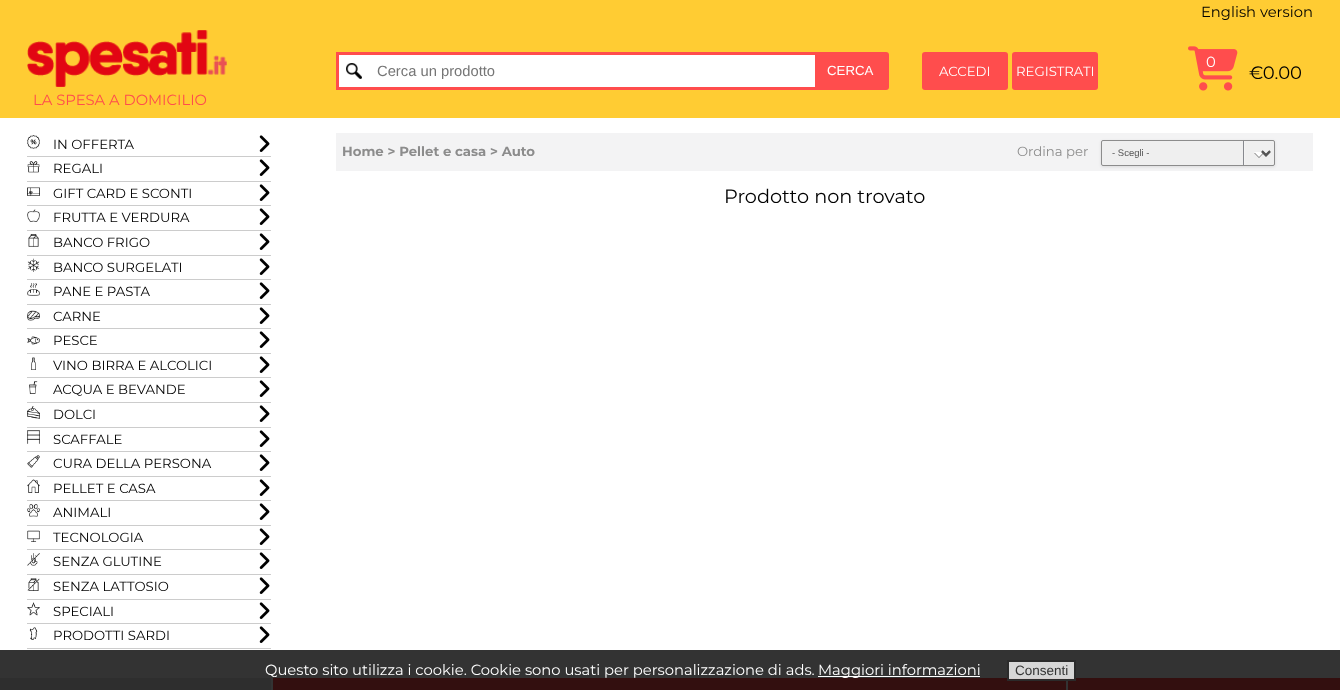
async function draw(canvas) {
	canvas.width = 1340;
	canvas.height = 690;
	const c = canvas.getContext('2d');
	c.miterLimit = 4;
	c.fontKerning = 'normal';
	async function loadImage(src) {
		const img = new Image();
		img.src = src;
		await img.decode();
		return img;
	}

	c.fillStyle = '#fff';
	c.fillRect(0, 0, 1340, 690);
	for (const [x, y, w, h, color] of [
		[0, 650, 1340, 28, '#333'],
		[1007, 660, 69, 18, '#d6d6d6'],
		[0, 0, 1340, 118, '#fc3'],
	]) {
		c.fillStyle = color;
		c.fillRect(x, y, w, h);
	}
	c.font = '14.75px Montserrat';
	c.fillStyle = '#000';
	c.fillText('English version', 1201, 17);
	c.beginPath();
	c.roundRect(337.5, 53.5, 550, 35, [0, 1.5, 1.5, 0]);
	c.strokeStyle = '#ff4d4d';
	c.lineWidth = 3;
	c.stroke();
	c.fillStyle = '#fff';
	c.fillRect(339, 55, 476, 32);
	c.drawImage(await loadImage('img1.png'), 346, 63, 16, 16);
	c.font = '14.75px Liberation Sans';
	c.fillStyle = '#757575';
	c.fillText('Cerca un prodotto', 377, 76);
	c.fillStyle = '#ff4d4d';
	c.fillRect(815, 55, 71, 32);
	c.font = '13.25px Liberation Sans';
	c.fillStyle = '#fff';
	c.fillText('CERCA', 827, 75);
	c.fillStyle = '#ff4d4d';
	c.beginPath();
	c.roundRect(922, 52, 86, 38, 3);
	c.fill();
	c.font = '13.25px Montserrat';
	c.fillStyle = '#fff';
	c.fillText('ACCEDI', 939, 76);
	c.fillStyle = '#ff4d4d';
	c.beginPath();
	c.roundRect(1012, 52, 86, 38, 3);
	c.fill();
	c.fillStyle = '#fff';
	c.fillText('REGISTRATI', 1016, 76);
	c.drawImage(await loadImage('img2.png'), 1188, 46, 50, 45);
	c.font = '14.75px Montserrat';
	c.fillText('0', 1206, 67);
	c.font = '18px Montserrat';
	c.fillStyle = '#000';
	c.fillText('€0.00', 1249, 79);
	c.drawImage(await loadImage('img3.png'), 27, 30, 200, 57);
	c.font = '14.75px Montserrat';
	c.fillStyle = '#ff4d4d';
	c.fillText('LA SPESA A DOMICILIO', 33, 105);
	c.fillStyle = '#ccc';
	c.fillRect(27, 156, 244, 1);
	c.drawImage(await loadImage('img4.png'), 27, 135, 13, 14);
	c.font = '13.25px Montserrat';
	c.fillStyle = '#000';
	c.fillText('IN OFFERTA', 53, 149);
	c.drawImage(await loadImage('img5.png'), 259, 135, 11, 17);
	c.fillStyle = '#ccc';
	c.fillRect(27, 181, 244, 1);
	c.drawImage(await loadImage('img6.png'), 27, 161, 13, 12);
	c.fillStyle = '#000';
	c.fillText('REGALI', 53, 173);
	c.drawImage(await loadImage('img5.png'), 259, 159, 11, 17);
	c.fillStyle = '#ccc';
	c.fillRect(27, 205, 244, 1);
	c.drawImage(await loadImage('img7.png'), 27, 187, 13, 9);
	c.fillStyle = '#000';
	c.fillText('GIFT CARD E SCONTI', 53, 198);
	c.drawImage(await loadImage('img5.png'), 259, 184, 11, 17);
	c.fillStyle = '#ccc';
	c.fillRect(27, 230, 244, 1);
	c.drawImage(await loadImage('img8.png'), 27, 209, 13, 13);
	c.fillStyle = '#000';
	c.fillText('FRUTTA E VERDURA', 53, 222);
	c.drawImage(await loadImage('img5.png'), 259, 208, 11, 17);
	c.fillStyle = '#ccc';
	c.fillRect(27, 255, 244, 1);
	c.drawImage(await loadImage('img9.png'), 28, 234, 11, 13);
	c.fillStyle = '#000';
	c.fillText('BANCO FRIGO', 53, 247);
	c.drawImage(await loadImage('img5.png'), 259, 233, 11, 17);
	c.fillStyle = '#ccc';
	c.fillRect(27, 279, 244, 1);
	c.drawImage(await loadImage('img10.png'), 27, 258, 13, 14);
	c.fillStyle = '#000';
	c.fillText('BANCO SURGELATI', 53, 272);
	c.drawImage(await loadImage('img5.png'), 259, 258, 11, 17);
	c.fillStyle = '#ccc';
	c.fillRect(27, 304, 244, 1);
	c.drawImage(await loadImage('img11.png'), 27, 283, 13, 13);
	c.fillStyle = '#000';
	c.fillText('PANE E PASTA', 53, 296);
	c.drawImage(await loadImage('img5.png'), 259, 282, 11, 17);
	c.fillStyle = '#ccc';
	c.fillRect(27, 328, 244, 1);
	c.drawImage(await loadImage('img12.png'), 27, 310, 13, 11);
	c.fillStyle = '#000';
	c.fillText('CARNE', 53, 321);
	c.drawImage(await loadImage('img5.png'), 259, 307, 11, 17);
	c.fillStyle = '#ccc';
	c.fillRect(27, 353, 244, 1);
	c.drawImage(await loadImage('img13.png'), 27, 336, 13, 9);
	c.fillStyle = '#000';
	c.fillText('PESCE', 53, 345);
	c.drawImage(await loadImage('img5.png'), 259, 331, 11, 17);
	c.fillStyle = '#ccc';
	c.fillRect(27, 377, 244, 1);
	c.drawImage(await loadImage('img14.png'), 31, 357, 5, 13);
	c.fillStyle = '#000';
	c.fillText('VINO BIRRA E ALCOLICI', 53, 370);
	c.drawImage(await loadImage('img5.png'), 259, 356, 11, 17);
	c.fillStyle = '#ccc';
	c.fillRect(27, 402, 244, 1);
	c.drawImage(await loadImage('img15.png'), 29, 381, 9, 13);
	c.fillStyle = '#000';
	c.fillText('ACQUA E BEVANDE', 53, 394);
	c.drawImage(await loadImage('img5.png'), 259, 380, 11, 17);
	c.fillStyle = '#ccc';
	c.fillRect(27, 427, 244, 1);
	c.drawImage(await loadImage('img16.png'), 27, 406, 13, 13);
	c.fillStyle = '#000';
	c.fillText('DOLCI', 53, 419);
	c.drawImage(await loadImage('img5.png'), 259, 405, 11, 17);
	c.fillStyle = '#ccc';
	c.fillRect(27, 451, 244, 1);
	c.drawImage(await loadImage('img17.png'), 27, 430, 13, 14);
	c.fillStyle = '#000';
	c.fillText('SCAFFALE', 53, 444);
	c.drawImage(await loadImage('img5.png'), 259, 430, 11, 17);
	c.fillStyle = '#ccc';
	c.fillRect(27, 476, 244, 1);
	c.drawImage(await loadImage('img18.png'), 27, 455, 13, 13);
	c.fillStyle = '#000';
	c.fillText('CURA DELLA PERSONA', 53, 468);
	c.drawImage(await loadImage('img5.png'), 259, 454, 11, 17);
	c.fillStyle = '#ccc';
	c.fillRect(27, 500, 244, 1);
	c.drawImage(await loadImage('img19.png'), 27, 479, 13, 14);
	c.fillStyle = '#000';
	c.fillText('PELLET E CASA', 53, 493);
	c.drawImage(await loadImage('img5.png'), 259, 479, 11, 17);
	c.fillStyle = '#ccc';
	c.fillRect(27, 525, 244, 1);
	c.drawImage(await loadImage('img20.png'), 27, 504, 13, 13);
	c.fillStyle = '#000';
	c.fillText('ANIMALI', 53, 517);
	c.drawImage(await loadImage('img5.png'), 259, 503, 11, 17);
	c.fillStyle = '#ccc';
	c.fillRect(27, 549, 244, 1);
	c.drawImage(await loadImage('img21.png'), 27, 530, 13, 12);
	c.fillStyle = '#000';
	c.fillText('TECNOLOGIA', 53, 542);
	c.drawImage(await loadImage('img5.png'), 259, 528, 11, 17);
	c.fillStyle = '#ccc';
	c.fillRect(27, 574, 244, 1);
	c.drawImage(await loadImage('img22.png'), 27, 553, 13, 13);
	c.fillStyle = '#000';
	c.fillText('SENZA GLUTINE', 53, 566);
	c.drawImage(await loadImage('img5.png'), 259, 552, 11, 17);
	c.fillStyle = '#ccc';
	c.fillRect(27, 599, 244, 1);
	c.drawImage(await loadImage('img23.png'), 27, 578, 13, 13);
	c.fillStyle = '#000';
	c.fillText('SENZA LATTOSIO', 53, 591);
	c.drawImage(await loadImage('img5.png'), 259, 577, 11, 17);
	c.fillStyle = '#ccc';
	c.fillRect(27, 623, 244, 1);
	c.drawImage(await loadImage('img24.png'), 27, 602, 13, 14);
	c.fillStyle = '#000';
	c.fillText('SPECIALI', 53, 616);
	c.drawImage(await loadImage('img5.png'), 259, 602, 11, 17);
	c.fillStyle = '#ccc';
	c.fillRect(27, 648, 244, 1);
	c.drawImage(await loadImage('img25.png'), 29, 627, 9, 13);
	c.fillStyle = '#000';
	c.fillText('PRODOTTI SARDI', 53, 640);
	c.drawImage(await loadImage('img5.png'), 259, 626, 11, 17);
	c.fillStyle = '#f3f3f4';
	c.fillRect(336, 133, 977, 38);
	c.font = 'bold 13.25px Montserrat';
	c.fillStyle = '#8c8c8c';
	c.fillText('Home > Pellet e casa > Auto', 342, 156);
	c.font = '13.25px Montserrat';
	c.fillText('Ordina per', 1017, 156);
	c.fillStyle = '#0000001a';
	c.filter = 'blur(1.5px)';
	c.beginPath();
	c.roundRect(1101, 141, 174, 26, 2);
	c.fill();
	c.filter = 'none';
	c.fillStyle = '#efefef';
	c.beginPath();
	c.roundRect(1101, 140, 174, 26, 2);
	c.fill();
	c.drawImage(await loadImage('img26.png'), 1243, 141, 28, 24);
	c.beginPath();
	c.roundRect(1101.5, 140.5, 173, 25, 1.5);
	c.strokeStyle = '#8c8c8c';
	c.lineWidth = 1;
	c.stroke();
	c.beginPath();
	c.moveTo(1262, 151.5);
	c.lineTo(1266, 155.5);
	c.lineTo(1270, 151.5);
	c.strokeStyle = '#555';
	c.lineWidth = 2;
	c.stroke();
	c.font = '9.5px Liberation Sans';
	c.fillStyle = '#555';
	c.fillText('- Scegli -', 1112, 156);
	c.font = '19.25px Montserrat';
	c.fillStyle = '#000';
	c.fillText('Prodotto non trovato', 724, 203);
	c.font = '14.75px Montserrat';
	c.fillStyle = '#fff';
	c.fillText('Questo sito utilizza i cookie. Cookie sono usati per personalizzazione di ads.', 265, 675);
	c.fillRect(818, 676, 162, 1);
	c.fillText('Maggiori informazioni', 818, 675);
	for (const [x, y, w, h, color] of [
		[273, 678, 793, 12, '#330f0f'],
		[1007, 678, 61, 3, '#d6cfcf'],
		[1066, 678, 2, 12, '#333'],
		[1066, 678, 2, 3, '#d6d6d6'],
		[1068, 678, 272, 12, '#330f0f'],
		[1068, 678, 8, 3, '#d6cfcf'],
	]) {
		c.fillStyle = color;
		c.fillRect(x, y, w, h);
	}
	c.strokeStyle = '#000000cc';
	c.strokeRect(1008, 661, 67, 19);
	c.font = '13.5px Liberation Sans';
	c.fillStyle = '#333';
	c.fillText('Consenti', 1015, 675);
	c.fillStyle = '#2e2e2e';
	c.fillRect(0, 678, 271, 12);
	c.fillStyle = '#333';
	c.fillRect(271, 678, 2, 12);
}

draw(document.querySelector('canvas'));
